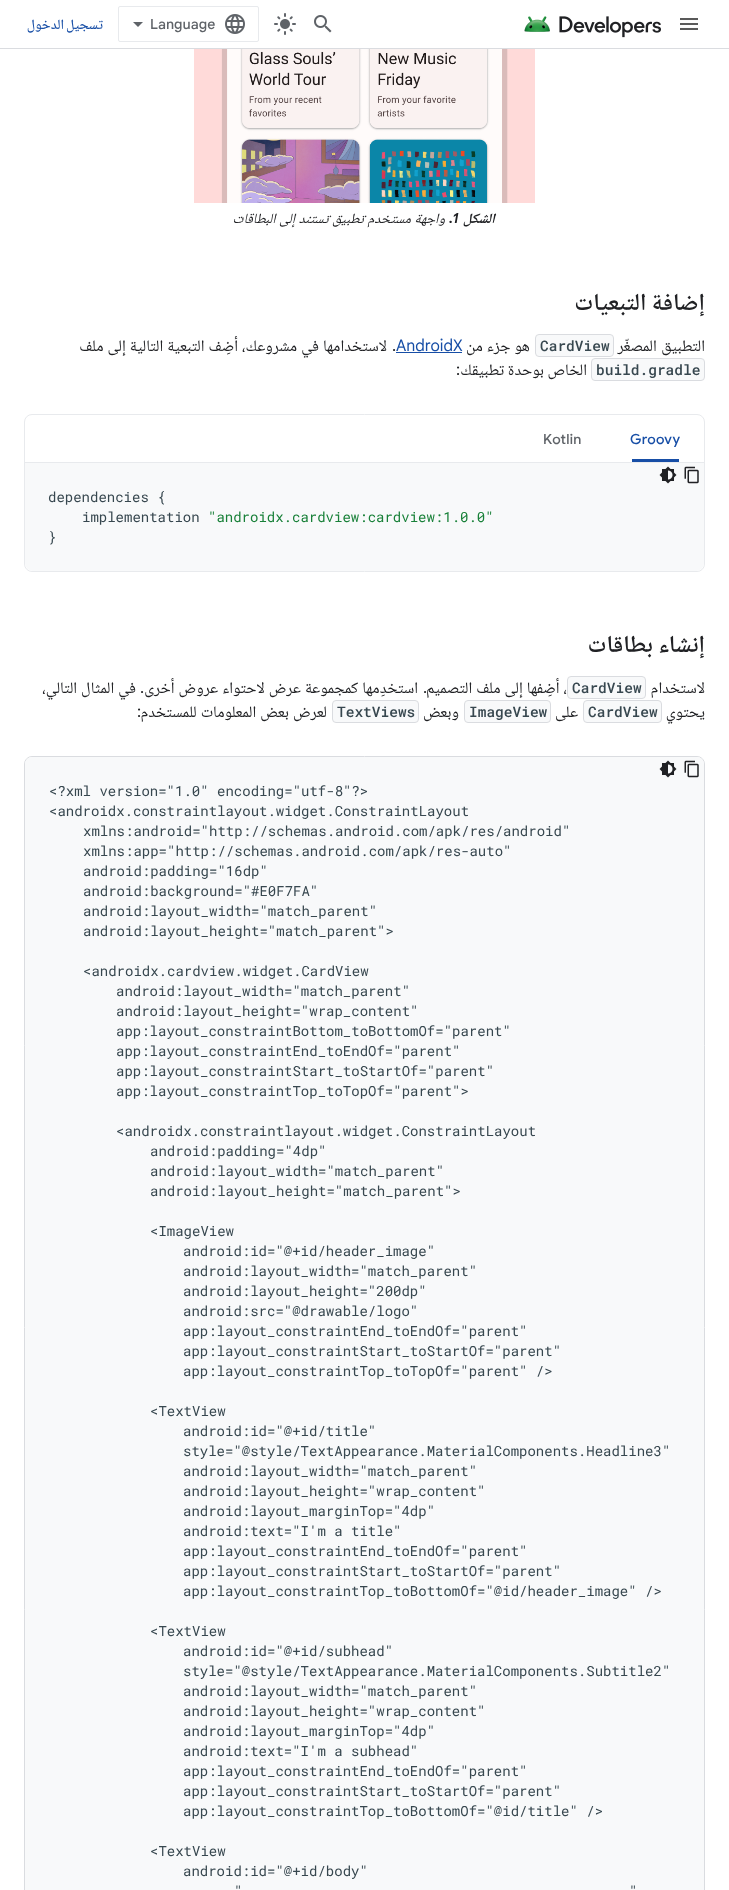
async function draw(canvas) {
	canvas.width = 729;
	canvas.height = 1890;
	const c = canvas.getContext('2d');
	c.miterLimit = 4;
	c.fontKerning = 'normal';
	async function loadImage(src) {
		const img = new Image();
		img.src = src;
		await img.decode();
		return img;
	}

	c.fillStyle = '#fff';
	c.fillRect(0, 0, 729, 1890);
	c.fillStyle = '#dadce0';
	c.fillRect(0, 48, 729, 1);
	c.letterSpacing = '0.25px';
	c.wordSpacing = '-1px';
	c.direction = 'rtl';
	c.font = '500 14px Noto Naskh Arabic';
	c.fillStyle = '#174ea6';
	c.fillText('تسجيل الدخول', 103, 29);
	c.beginPath();
	c.roundRect(118.5, 6.5, 140, 35, 1.5);
	c.strokeStyle = '#e8eaed';
	c.stroke();
	c.fillStyle = '#5f6368';
	c.beginPath();
	c.moveTo(138, 27);
	c.lineTo(133, 22);
	c.lineTo(143, 22);
	c.closePath();
	c.fill();
	c.letterSpacing = '0px';
	c.wordSpacing = '0px';
	c.direction = 'ltr';
	c.font = '500 14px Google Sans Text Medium';
	c.fillText('Language', 150, 29);
	c.drawImage(await loadImage('img1.png'), 225, 14, 20, 20);
	c.drawImage(await loadImage('img2.png'), 274, 13, 22, 22);
	c.drawImage(await loadImage('img3.png'), 314, 15, 18, 18);
	c.drawImage(await loadImage('img4.png'), 524, 16, 137, 22);
	c.drawImage(await loadImage('img5.png'), 680, 18, 18, 12);
	c.drawImage(await loadImage('img6.png'), 194, 49, 341, 154);
	c.wordSpacing = '0.5px';
	c.direction = 'rtl';
	c.font = 'italic 14px Noto Naskh Arabic';
	c.fillStyle = '#202124';
	c.fillText('واجهة مستخدم تطبيق تستند إلى البطاقات', 445, 223);
	c.wordSpacing = '0px';
	c.direction = 'ltr';
	c.font = 'italic bold 14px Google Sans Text';
	c.fillText('.1', 449, 223);
	c.direction = 'rtl';
	c.font = 'italic bold 14px Noto Naskh Arabic';
	c.fillText('الشكل', 495, 223);
	c.font = '600 24px Noto Naskh Arabic';
	c.fillText('إضافة التبعيات', 705, 310);
	c.wordSpacing = '0.5px';
	c.font = '16px Noto Naskh Arabic';
	c.fillText('لاستخدامها في مشروعك، أضِف التبعية التالية إلى ملف', 387, 351);
	c.wordSpacing = '0px';
	c.font = '16px Google Sans Text';
	c.fillText('.', 396, 351);
	c.direction = 'ltr';
	c.fillStyle = '#174ea6';
	c.fillText('AndroidX', 396, 351);
	c.fillRect(396, 352, 66, 1);
	c.wordSpacing = '0.5px';
	c.direction = 'rtl';
	c.font = '16px Noto Naskh Arabic';
	c.fillStyle = '#202124';
	c.fillText('هو جزء من', 530, 351);
	c.fillStyle = '#f8f9fa';
	c.beginPath();
	c.roundRect(535.5, 334.5, 78, 22, 3.5);
	c.fill();
	c.strokeStyle = '#dadce0';
	c.stroke();
	c.wordSpacing = '0px';
	c.direction = 'ltr';
	c.font = '500 14.5px Roboto Mono';
	c.fillStyle = '#37474f';
	c.fillText('CardView', 540, 351);
	c.wordSpacing = '1px';
	c.direction = 'rtl';
	c.font = '16px Noto Naskh Arabic';
	c.fillStyle = '#202124';
	c.fillText('التطبيق المصغّر', 705, 351);
	c.wordSpacing = '0px';
	c.font = '16px Google Sans Text';
	c.fillText(':', 460, 375);
	c.font = '16px Noto Naskh Arabic';
	c.fillText('الخاص بوحدة تطبيقك', 587, 375);
	c.fillStyle = '#f8f9fa';
	c.beginPath();
	c.roundRect(591.5, 358.5, 113, 22, 3.5);
	c.fill();
	c.stroke();
	c.direction = 'ltr';
	c.font = '500 14.5px Roboto Mono';
	c.fillStyle = '#37474f';
	c.fillText('build.gradle', 596, 375);
	c.beginPath();
	c.roundRect(24.5, 414.5, 680, 157, 7.5);
	c.strokeStyle = '#e8eaed';
	c.stroke();
	c.fillStyle = '#e8eaed';
	c.fillRect(25, 462, 679, 1);
	c.letterSpacing = '0.25px';
	c.font = '500 14px Google Sans';
	c.fillStyle = '#5f6368';
	c.fillText('Kotlin', 543, 444);
	c.fillStyle = '#174ea6';
	c.fillText('Groovy', 630, 444);
	c.fillRect(632, 459, 47, 3);
	c.fillStyle = '#f8f9fa';
	c.beginPath();
	c.roundRect(25, 463, 679, 108, [0, 0, 8, 8]);
	c.fill();
	c.drawImage(await loadImage('img7.png'), 659, 466, 18, 18);
	c.drawImage(await loadImage('img8.png'), 684, 466, 15, 18);
	c.letterSpacing = '0px';
	c.font = '14px Roboto Mono';
	c.fillStyle = '#37474f';
	c.fillText('dependencies {', 48, 502);
	c.fillText('implementation', 82, 522);
	c.fillStyle = '#188038';
	c.fillText('"androidx.cardview:cardview:1.0.0"', 208, 522);
	c.fillStyle = '#37474f';
	c.fillText('}', 48, 542);
	c.direction = 'rtl';
	c.font = '600 24px Noto Naskh Arabic';
	c.fillStyle = '#202124';
	c.fillText('إنشاء بطاقات', 705, 652);
	c.wordSpacing = '0.5px';
	c.font = '16px Noto Naskh Arabic';
	c.fillText('في المثال التالي،', 136, 693);
	c.wordSpacing = '0px';
	c.font = '16px Google Sans Text';
	c.fillText('.', 144, 693);
	c.wordSpacing = '0.5px';
	c.font = '16px Noto Naskh Arabic';
	c.fillText('استخدِمها كمجموعة عرض لاحتواء عروض أخرى', 418, 693);
	c.wordSpacing = '0px';
	c.font = '16px Google Sans Text';
	c.fillText('.', 427, 693);
	c.wordSpacing = '0.5px';
	c.font = '16px Noto Naskh Arabic';
	c.fillText('، أضِفها إلى ملف التصميم', 567, 693);
	c.fillStyle = '#f8f9fa';
	c.beginPath();
	c.roundRect(567.5, 676.5, 78, 22, 3.5);
	c.fill();
	c.strokeStyle = '#dadce0';
	c.stroke();
	c.wordSpacing = '0px';
	c.direction = 'ltr';
	c.font = '500 14.5px Roboto Mono';
	c.fillStyle = '#37474f';
	c.fillText('CardView', 572, 693);
	c.direction = 'rtl';
	c.font = '16px Noto Naskh Arabic';
	c.fillStyle = '#202124';
	c.fillText('لاستخدام', 705, 693);
	c.font = '16px Google Sans Text';
	c.fillText(':', 141, 717);
	c.wordSpacing = '0.5px';
	c.font = '16px Noto Naskh Arabic';
	c.fillText('لعرض بعض المعلومات للمستخدم', 327, 717);
	c.fillStyle = '#f8f9fa';
	c.beginPath();
	c.roundRect(332.5, 700.5, 86, 22, 3.5);
	c.fill();
	c.stroke();
	c.wordSpacing = '0px';
	c.direction = 'ltr';
	c.font = '500 14.5px Roboto Mono';
	c.fillStyle = '#37474f';
	c.fillText('TextViews', 337, 717);
	c.direction = 'rtl';
	c.font = '16px Noto Naskh Arabic';
	c.fillStyle = '#202124';
	c.fillText('وبعض', 459, 717);
	c.fillStyle = '#f8f9fa';
	c.beginPath();
	c.roundRect(464.5, 700.5, 86, 22, 3.5);
	c.fill();
	c.stroke();
	c.direction = 'ltr';
	c.font = '500 14.5px Roboto Mono';
	c.fillStyle = '#37474f';
	c.fillText('ImageView', 469, 717);
	c.direction = 'rtl';
	c.font = '16px Noto Naskh Arabic';
	c.fillStyle = '#202124';
	c.fillText('على', 578, 717);
	c.fillStyle = '#f8f9fa';
	c.beginPath();
	c.roundRect(583.5, 700.5, 78, 22, 3.5);
	c.fill();
	c.stroke();
	c.direction = 'ltr';
	c.font = '500 14.5px Roboto Mono';
	c.fillStyle = '#37474f';
	c.fillText('CardView', 588, 717);
	c.direction = 'rtl';
	c.font = '16px Noto Naskh Arabic';
	c.fillStyle = '#202124';
	c.fillText('يحتوي', 705, 717);
	c.beginPath();
	c.roundRect(24.5, 756.5, 680, 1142, 7.5);
	c.stroke();
	c.fillStyle = '#f8f9fa';
	c.beginPath();
	c.roundRect(25, 757, 679, 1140, 7);
	c.fill();
	c.drawImage(await loadImage('img7.png'), 659, 760, 18, 18);
	c.drawImage(await loadImage('img8.png'), 684, 760, 15, 18);
	c.direction = 'ltr';
	c.font = '14px Roboto Mono';
	c.fillStyle = '#37474f';
	for (const [text, x, y] of [
		['<?xml version="1.0" encoding="utf-8"?>', 49, 796],
		['<androidx.constraintlayout.widget.ConstraintLayout', 49, 816],
		['xmlns:android="http://schemas.android.com/apk/res/android"', 83, 836],
		['xmlns:app="http://schemas.android.com/apk/res-auto"', 83, 856],
		['android:padding="16dp"', 83, 876],
		['android:background="#E0F7FA"', 83, 896],
		['android:layout_width="match_parent"', 83, 916],
		['android:layout_height="match_parent">', 83, 936],
		['<androidx.cardview.widget.CardView', 83, 976],
		['android:layout_width="match_parent"', 116, 996],
		['android:layout_height="wrap_content"', 116, 1016],
		['app:layout_constraintBottom_toBottomOf="parent"', 116, 1036],
		['app:layout_constraintEnd_toEndOf="parent"', 116, 1056],
		['app:layout_constraintStart_toStartOf="parent"', 116, 1076],
		['app:layout_constraintTop_toTopOf="parent">', 116, 1096],
		['<androidx.constraintlayout.widget.ConstraintLayout', 116, 1136],
		['android:padding="4dp"', 150, 1156],
		['android:layout_width="match_parent"', 150, 1176],
		['android:layout_height="match_parent">', 150, 1196],
		['<ImageView', 150, 1236],
		['android:id="@+id/header_image"', 183, 1256],
		['android:layout_width="match_parent"', 183, 1276],
		['android:layout_height="200dp"', 183, 1296],
		['android:src="@drawable/logo"', 183, 1316],
		['app:layout_constraintEnd_toEndOf="parent"', 183, 1336],
		['app:layout_constraintStart_toStartOf="parent"', 183, 1356],
		['app:layout_constraintTop_toTopOf="parent" />', 183, 1376],
		['<TextView', 150, 1416],
		['android:id="@+id/title"', 183, 1436],
		['style="@style/TextAppearance.MaterialComponents.Headline3"', 183, 1456],
		['android:layout_width="match_parent"', 183, 1476],
		['android:layout_height="wrap_content"', 183, 1496],
		['android:layout_marginTop="4dp"', 183, 1516],
		['android:text="I\'m a title"', 183, 1536],
		['app:layout_constraintEnd_toEndOf="parent"', 183, 1556],
		['app:layout_constraintStart_toStartOf="parent"', 183, 1576],
		['app:layout_constraintTop_toBottomOf="@id/header_image" />', 183, 1596],
		['<TextView', 150, 1636],
		['android:id="@+id/subhead"', 183, 1656],
		['style="@style/TextAppearance.MaterialComponents.Subtitle2"', 183, 1676],
		['android:layout_width="match_parent"', 183, 1696],
		['android:layout_height="wrap_content"', 183, 1716],
		['android:layout_marginTop="4dp"', 183, 1736],
		['android:text="I\'m a subhead"', 183, 1756],
		['app:layout_constraintEnd_toEndOf="parent"', 183, 1776],
		['app:layout_constraintStart_toStartOf="parent"', 183, 1796],
		['app:layout_constraintTop_toBottomOf="@id/title" />', 183, 1816],
		['<TextView', 150, 1856],
		['android:id="@+id/body"', 183, 1876],
		['"', 234, 1896],
		['"', 629, 1896],
	]) {
		c.fillText(text, x, y);
	}
}

draw(document.querySelector('canvas'));
